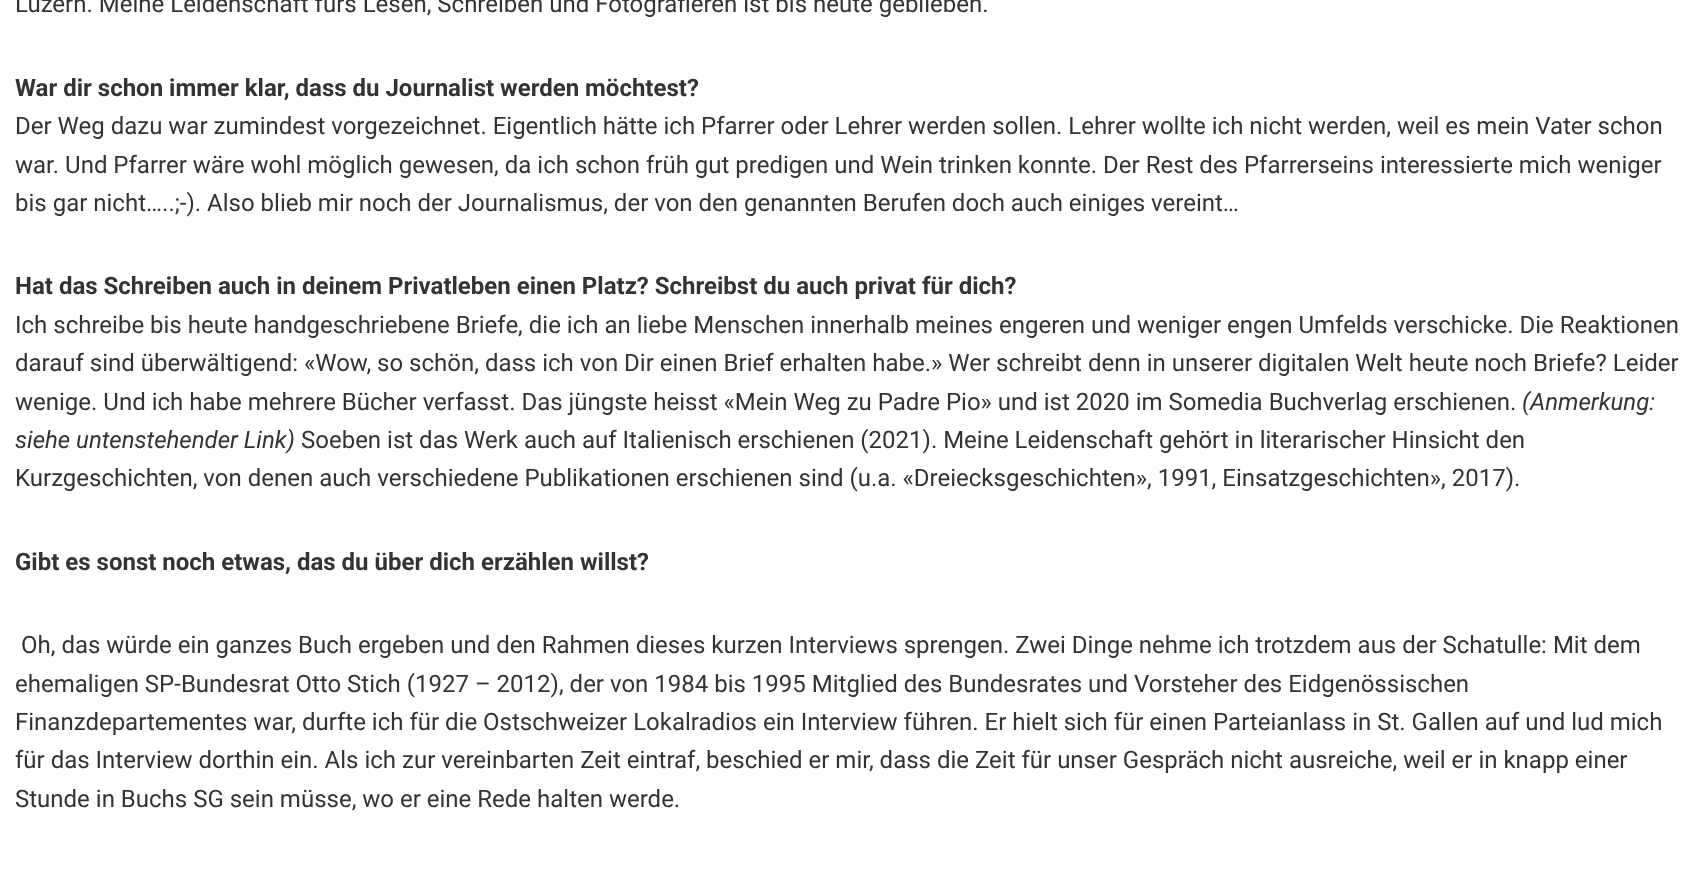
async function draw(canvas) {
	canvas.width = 1705;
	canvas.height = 883;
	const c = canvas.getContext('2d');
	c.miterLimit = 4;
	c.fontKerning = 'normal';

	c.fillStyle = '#fff';
	c.fillRect(0, 0, 1705, 883);
	c.font = '24px Roboto';
	c.fillStyle = '#333';
	c.fillText('Luzern. Meine Leidenschaft fürs Lesen, Schreiben und Fotografieren ist bis heute geblieben.', 15, 12);
	c.font = 'bold 24px Roboto';
	c.fillText('War dir schon immer klar, dass du Journalist werden möchtest?', 15, 96);
	c.font = '24px Roboto';
	for (const [text, x, y] of [
		['Der Weg dazu war zumindest vorgezeichnet. Eigentlich hätte ich Pfarrer oder Lehrer werden sollen. Lehrer wollte ich nicht werden, weil es mein Vater schon', 15, 134],
		['war. Und Pfarrer wäre wohl möglich gewesen, da ich schon früh gut predigen und Wein trinken konnte. Der Rest des Pfarrerseins interessierte mich weniger', 15, 173],
		['bis gar nicht…..;-). Also blieb mir noch der Journalismus, der von den genannten Berufen doch auch einiges vereint…', 15, 211],
	]) {
		c.fillText(text, x, y);
	}
	c.font = 'bold 24px Roboto';
	c.fillText('Hat das Schreiben auch in deinem Privatleben einen Platz? Schreibst du auch privat für dich?', 15, 294);
	c.font = '24px Roboto';
	for (const [text, x, y] of [
		['Ich schreibe bis heute handgeschriebene Briefe, die ich an liebe Menschen innerhalb meines engeren und weniger engen Umfelds verschicke. Die Reaktionen', 15, 333],
		['darauf sind überwältigend: «Wow, so schön, dass ich von Dir einen Brief erhalten habe.» Wer schreibt denn in unserer digitalen Welt heute noch Briefe? Leider', 15, 371],
		['wenige. Und ich habe mehrere Bücher verfasst. Das jüngste heisst «Mein Weg zu Padre Pio» und ist 2020 im Somedia Buchverlag erschienen.', 15, 410],
	]) {
		c.fillText(text, x, y);
	}
	c.font = 'italic 24px Roboto';
	c.fillText('(Anmerkung:', 1522, 410);
	c.fillText('siehe untenstehender Link)', 15, 448);
	c.font = '24px Roboto';
	c.fillText('Soeben ist das Werk auch auf Italienisch erschienen (2021). Meine Leidenschaft gehört in literarischer Hinsicht den', 301, 448);
	c.fillText('Kurzgeschichten, von denen auch verschiedene Publikationen erschienen sind (u.a. «Dreiecksgeschichten», 1991, Einsatzgeschichten», 2017).', 15, 486);
	c.font = 'bold 24px Roboto';
	c.fillText('Gibt es sonst noch etwas, das du über dich erzählen willst?', 15, 570);
	c.font = '24px Roboto';
	for (const [text, x, y] of [
		['Oh, das würde ein ganzes Buch ergeben und den Rahmen dieses kurzen Interviews sprengen. Zwei Dinge nehme ich trotzdem aus der Schatulle: Mit dem', 21, 653],
		['ehemaligen SP-Bundesrat Otto Stich (1927 – 2012), der von 1984 bis 1995 Mitglied des Bundesrates und Vorsteher des Eidgenössischen', 15, 692],
		['Finanzdepartementes war, durfte ich für die Ostschweizer Lokalradios ein Interview führen. Er hielt sich für einen Parteianlass in St. Gallen auf und lud mich', 15, 730],
		['für das Interview dorthin ein. Als ich zur vereinbarten Zeit eintraf, beschied er mir, dass die Zeit für unser Gespräch nicht ausreiche, weil er in knapp einer', 15, 768],
		['Stunde in Buchs SG sein müsse, wo er eine Rede halten werde.', 15, 807],
	]) {
		c.fillText(text, x, y);
	}
}

draw(document.querySelector('canvas'));
